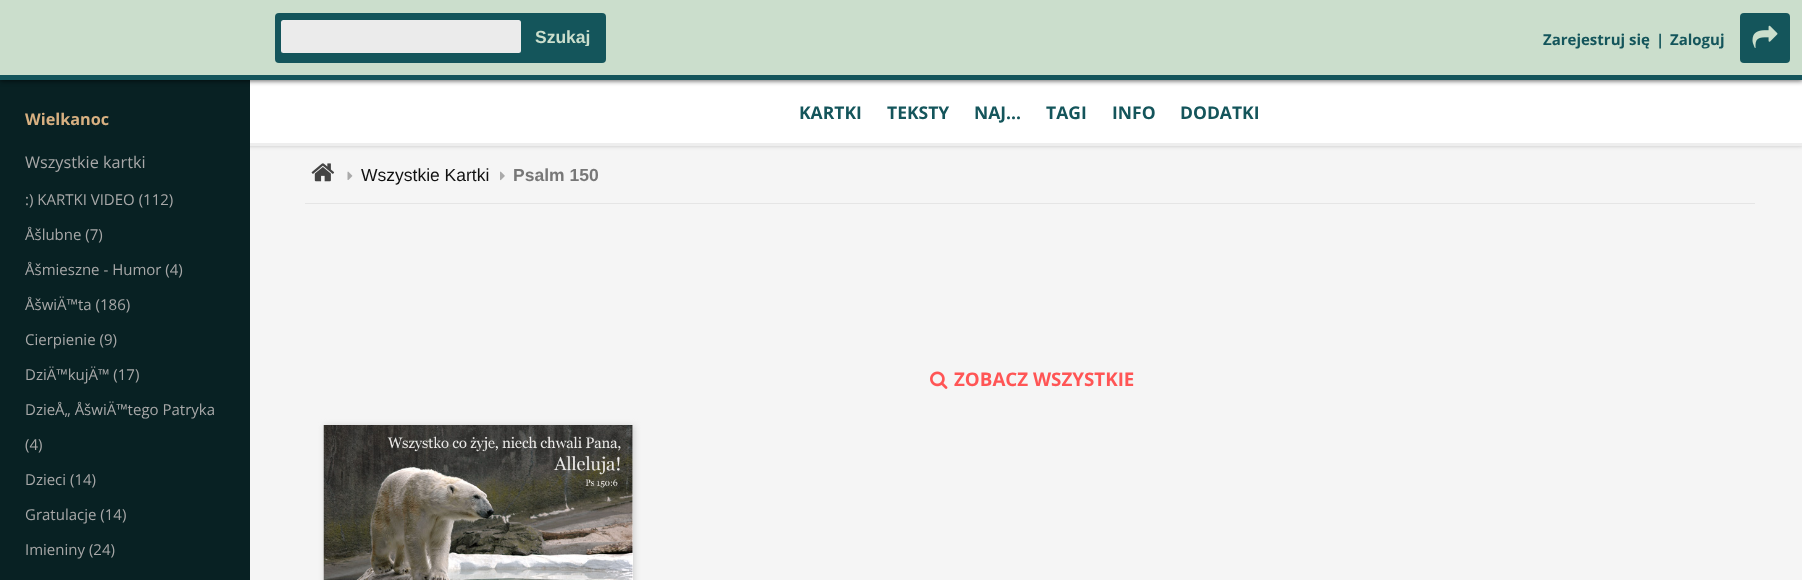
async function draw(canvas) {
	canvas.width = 1802;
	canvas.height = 580;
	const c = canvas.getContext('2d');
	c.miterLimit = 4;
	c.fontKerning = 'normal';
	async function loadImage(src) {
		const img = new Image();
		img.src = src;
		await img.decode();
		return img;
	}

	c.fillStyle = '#f5f5f5';
	c.fillRect(0, 0, 1802, 580);
	c.fillStyle = '#00000033';
	c.filter = 'blur(2px)';
	c.beginPath();
	c.rect(0, 1, 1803, 145);
	c.fill();
	c.filter = 'none';
	c.fillStyle = '#082123';
	c.fillRect(0, 80, 250, 500);
	c.fillStyle = '#fff';
	c.fillRect(250, 80, 1552, 63);
	c.fillStyle = '#00000099';
	c.filter = 'blur(2.5px)';
	c.beginPath();
	c.rect(0, 1, 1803, 80);
	c.fill();
	c.filter = 'none';
	c.fillStyle = '#cbdecc';
	c.fillRect(0, 0, 1802, 75);
	c.fillStyle = '#14555b';
	c.fillRect(0, 75, 1802, 5);
	c.beginPath();
	c.roundRect(275, 13, 331, 50, 4);
	c.fill();
	c.fillStyle = '#ebebeb';
	c.beginPath();
	c.roundRect(281, 20, 240, 33, 2.5);
	c.fill();
	c.save();
	c.beginPath();
	c.roundRect(526, 19, 73, 27, 1);
	c.clip();
	c.font = 'bold 17.5px Liberation Sans';
	c.fillStyle = '#cbdecc';
	c.fillText('Szukaj', 535, 43);
	c.restore();
	c.font = 'bold 15px Open Sans';
	c.fillStyle = '#14555b';
	for (const [text, x, y] of [
		['Zarejestruj się', 1543, 45],
		['|', 1656, 45],
		['Zaloguj', 1670, 45],
	]) {
		c.fillText(text, x, y);
	}
	c.beginPath();
	c.roundRect(1740, 13, 50, 50, 4);
	c.fill();
	c.drawImage(await loadImage('img1.png'), 1752, 25, 26, 23);
	c.font = 'bold 16.25px Open Sans';
	c.fillStyle = '#d7b081';
	c.fillText('Wielkanoc', 25, 125);
	c.font = '16.25px Open Sans';
	c.fillStyle = '#a8a8a8';
	c.fillText('Wszystkie kartki', 25, 168);
	c.font = '15px Open Sans';
	for (const [text, x, y] of [
		[':) KARTKI VIDEO (112)', 25, 205],
		['Åšlubne (7)', 25, 240],
		['Åšmieszne - Humor (4)', 25, 275],
		['ÅšwiÄ™ta (186)', 25, 310],
		['Cierpienie (9)', 25, 345],
		['DziÄ™kujÄ™ (17)', 25, 380],
		['DzieÅ„ ÅšwiÄ™tego Patryka', 25, 415],
		['(4)', 25, 450],
		['Dzieci (14)', 25, 485],
		['Gratulacje (14)', 25, 520],
		['Imieniny (24)', 25, 555],
	]) {
		c.fillText(text, x, y);
	}
	c.fillStyle = '#eee';
	c.fillRect(250, 143, 1552, 3);
	c.font = 'bold 17.5px Open Sans';
	c.fillStyle = '#14555b';
	for (const [text, x, y] of [
		['KARTKI', 799, 119],
		['TEKSTY', 887, 119],
		['NAJ...', 974, 119],
		['TAGI', 1046, 119],
		['INFO', 1112, 119],
		['DODATKI', 1180, 119],
	]) {
		c.fillText(text, x, y);
	}
	c.fillStyle = '#e5e5e5';
	c.fillRect(305, 203, 1450, 1);
	c.drawImage(await loadImage('img2.png'), 311, 163, 24, 19);
	c.drawImage(await loadImage('img3.png'), 347, 171, 6, 9);
	c.font = '17.5px Liberation Sans';
	c.fillStyle = '#111';
	c.fillText('Wszystkie Kartki', 361, 181);
	c.drawImage(await loadImage('img4.png'), 500, 171, 5, 10);
	c.font = 'bold 17.5px Liberation Sans';
	c.fillStyle = '#777';
	c.fillText('Psalm 150', 513, 181);
	c.drawImage(await loadImage('img5.png'), 930, 371, 18, 18);
	c.font = 'bold 18.75px Open Sans';
	c.fillStyle = '#f55';
	c.fillText('ZOBACZ WSZYSTKIE', 954, 386);
	c.fillStyle = '#ccc';
	c.filter = 'blur(3px)';
	c.beginPath();
	c.rect(325, 426, 309, 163);
	c.fill();
	c.filter = 'none';
	c.fillStyle = '#fff';
	c.fillRect(632, 425, 1, 155);
	c.drawImage(await loadImage('img6.png'), 323, 425, 310, 155);
}

draw(document.querySelector('canvas'));
